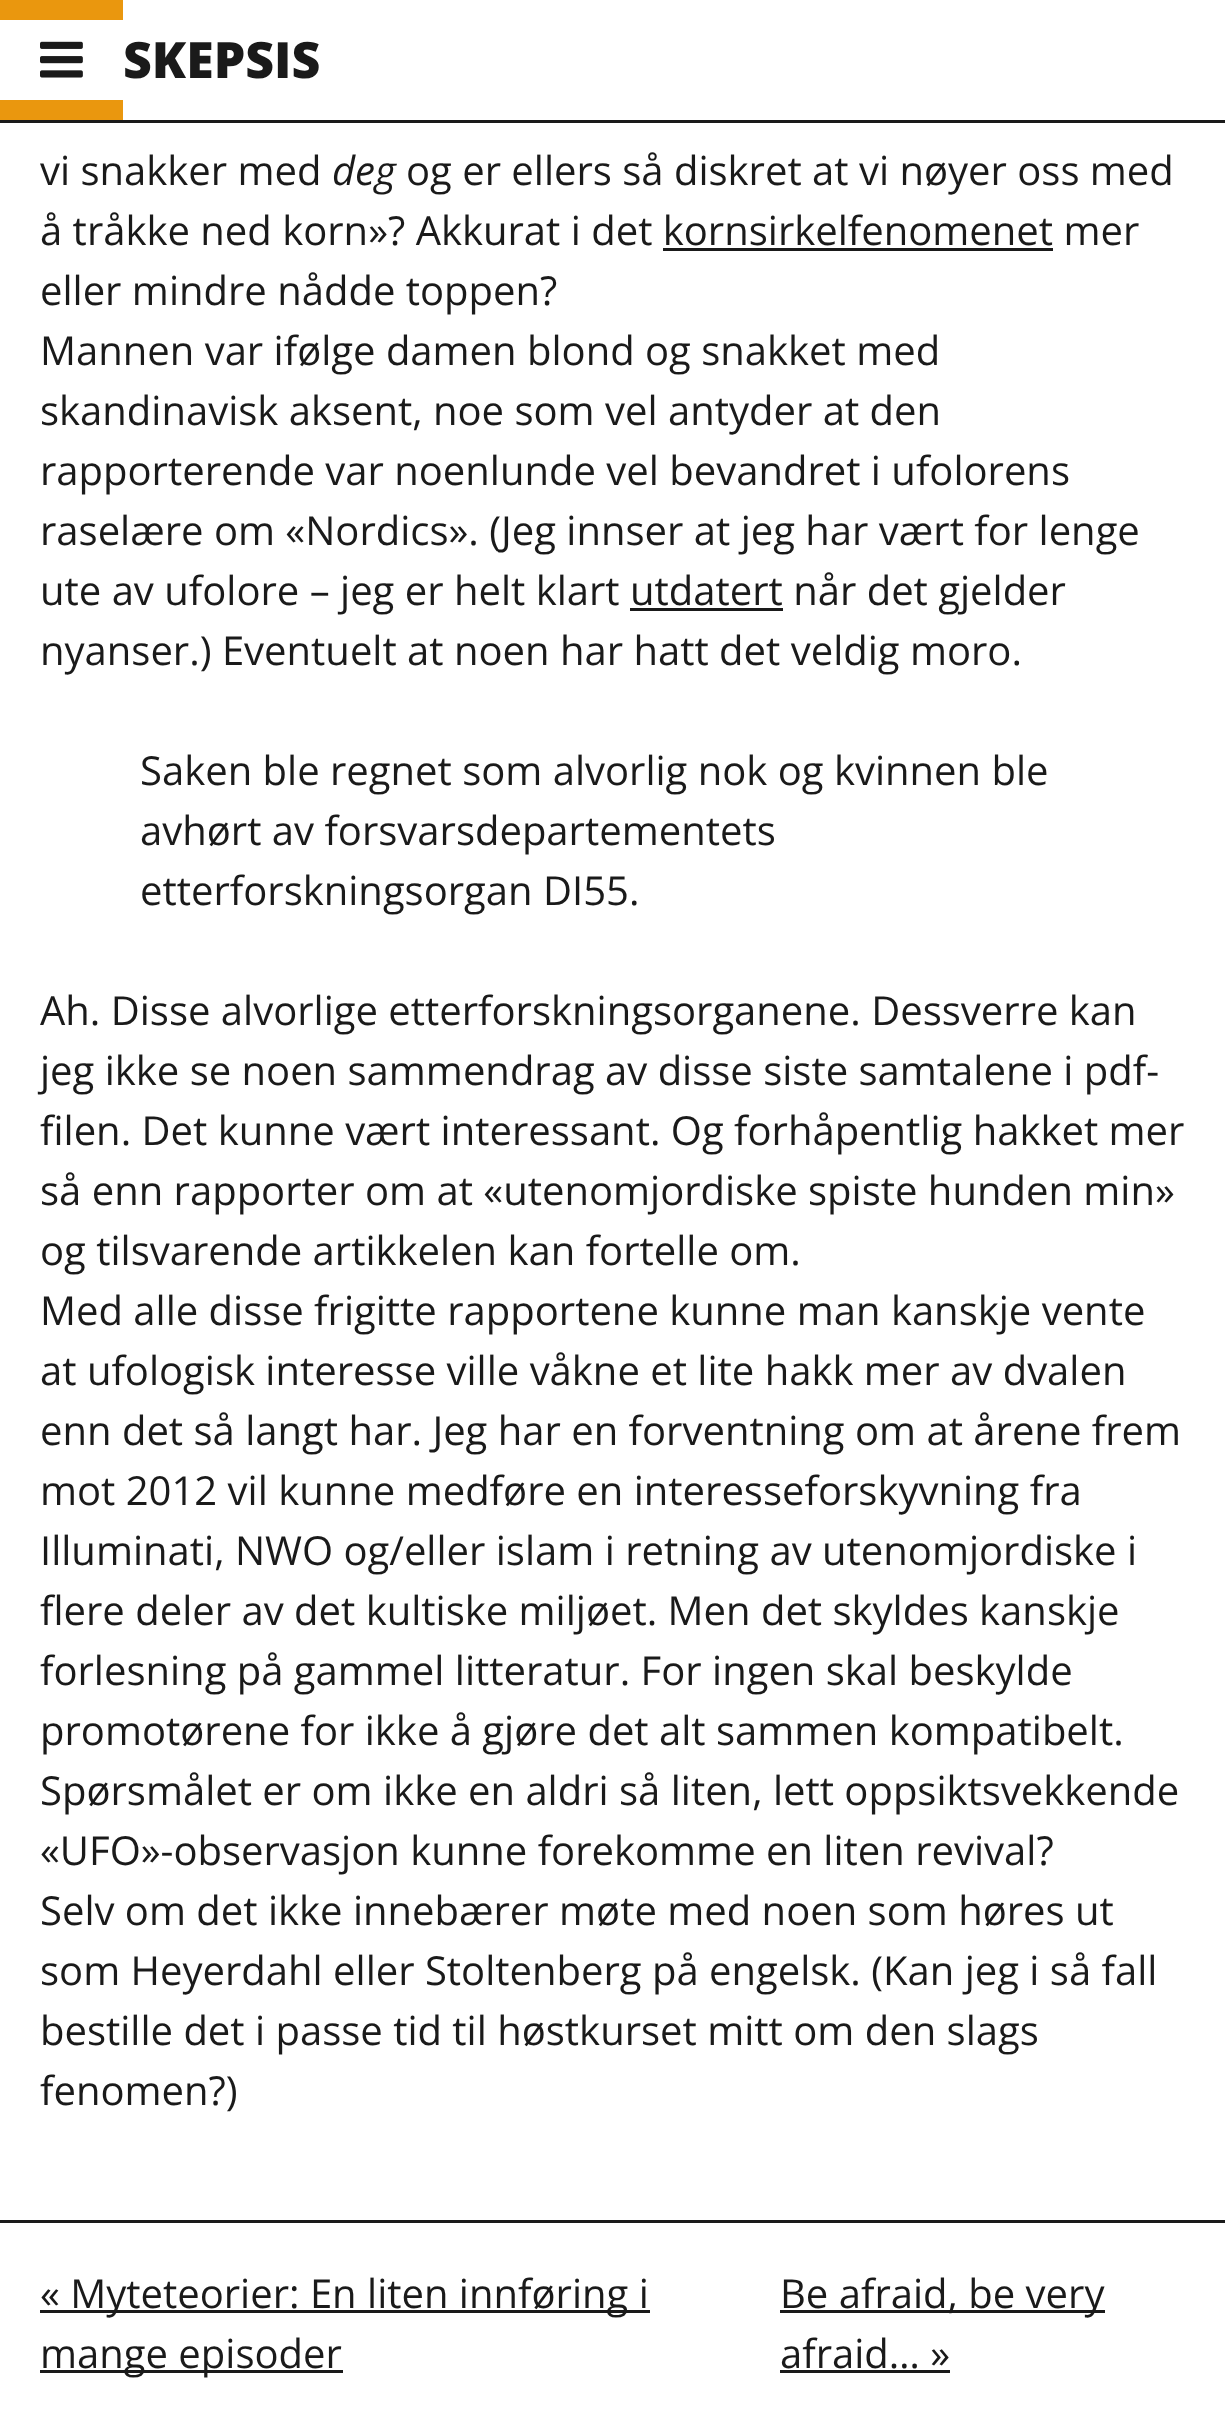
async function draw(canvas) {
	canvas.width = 1225;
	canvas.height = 2421;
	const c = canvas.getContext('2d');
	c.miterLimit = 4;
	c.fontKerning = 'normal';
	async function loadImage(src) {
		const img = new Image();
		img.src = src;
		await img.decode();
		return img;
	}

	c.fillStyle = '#fff';
	c.fillRect(0, 0, 1225, 2421);
	for (const [x, y, w, h, color] of [
		[0, 120, 1225, 3, '#1a1a1a'],
		[0, 0, 123, 20, '#ea970e'],
		[0, 100, 123, 20, '#ea970e'],
	]) {
		c.fillStyle = color;
		c.fillRect(x, y, w, h);
	}
	c.drawImage(await loadImage('img1.png'), 40, 41, 43, 37);
	c.font = '800 50px Open Sans';
	c.fillStyle = '#1a1a1a';
	c.fillText('SKEPSIS', 123, 78);
	c.font = '40px Open Sans';
	c.fillText('vi snakker med', 40, 185);
	c.font = 'italic 40px Open Sans';
	c.fillText('deg', 332, 185);
	c.font = '40px Open Sans';
	c.fillText('og er ellers så diskret at vi nøyer oss med', 406, 185);
	c.fillText('å tråkke ned korn»? Akkurat i det kornsirkelfenomenet mer', 40, 245);
	c.fillRect(663, 248, 390, 3);
	for (const [text, x, y] of [
		['eller mindre nådde toppen?', 40, 305],
		['Mannen var ifølge damen blond og snakket med', 40, 365],
		['skandinavisk aksent, noe som vel antyder at den', 40, 425],
		['rapporterende var noenlunde vel bevandret i ufolorens', 40, 485],
		['raselære om «Nordics». (Jeg innser at jeg har vært for lenge', 40, 545],
		['ute av ufolore – jeg er helt klart utdatert når det gjelder', 40, 605],
	]) {
		c.fillText(text, x, y);
	}
	c.fillRect(630, 608, 153, 3);
	for (const [text, x, y] of [
		['nyanser.) Eventuelt at noen har hatt det veldig moro.', 40, 665],
		['Saken ble regnet som alvorlig nok og kvinnen ble', 140, 785],
		['avhørt av forsvarsdepartementets', 140, 845],
		['etterforskningsorgan DI55.', 140, 905],
		['Ah. Disse alvorlige etterforskningsorganene. Dessverre kan', 40, 1025],
		['jeg ikke se noen sammendrag av disse siste samtalene i pdf-', 40, 1085],
		['filen. Det kunne vært interessant. Og forhåpentlig hakket mer', 40, 1145],
		['så enn rapporter om at «utenomjordiske spiste hunden min»', 40, 1205],
		['og tilsvarende artikkelen kan fortelle om.', 40, 1265],
		['Med alle disse frigitte rapportene kunne man kanskje vente', 40, 1325],
		['at ufologisk interesse ville våkne et lite hakk mer av dvalen', 40, 1385],
		['enn det så langt har. Jeg har en forventning om at årene frem', 40, 1445],
		['mot 2012 vil kunne medføre en interesseforskyvning fra', 40, 1505],
		['Illuminati, NWO og/eller islam i retning av utenomjordiske i', 40, 1565],
		['flere deler av det kultiske miljøet. Men det skyldes kanskje', 40, 1625],
		['forlesning på gammel litteratur. For ingen skal beskylde', 40, 1685],
		['promotørene for ikke å gjøre det alt sammen kompatibelt.', 40, 1745],
		['Spørsmålet er om ikke en aldri så liten, lett oppsiktsvekkende', 40, 1805],
		['«UFO»-observasjon kunne forekomme en liten revival?', 40, 1865],
		['Selv om det ikke innebærer møte med noen som høres ut', 40, 1925],
		['som Heyerdahl eller Stoltenberg på engelsk. (Kan jeg i så fall', 40, 1985],
		['bestille det i passe tid til høstkurset mitt om den slags', 40, 2045],
		['fenomen?)', 40, 2105],
	]) {
		c.fillText(text, x, y);
	}
	c.fillRect(0, 2220, 1225, 3);
	c.fillRect(40, 2310, 610, 3);
	c.fillText('« Myteteorier: En liten innføring i', 40, 2308);
	c.fillRect(40, 2370, 303, 3);
	c.fillText('mange episoder', 40, 2368);
	c.fillRect(780, 2310, 325, 3);
	c.fillText('Be afraid, be very', 780, 2308);
	c.fillText('afraid… »', 780, 2368);
	c.fillRect(780, 2370, 170, 3);
}

draw(document.querySelector('canvas'));
